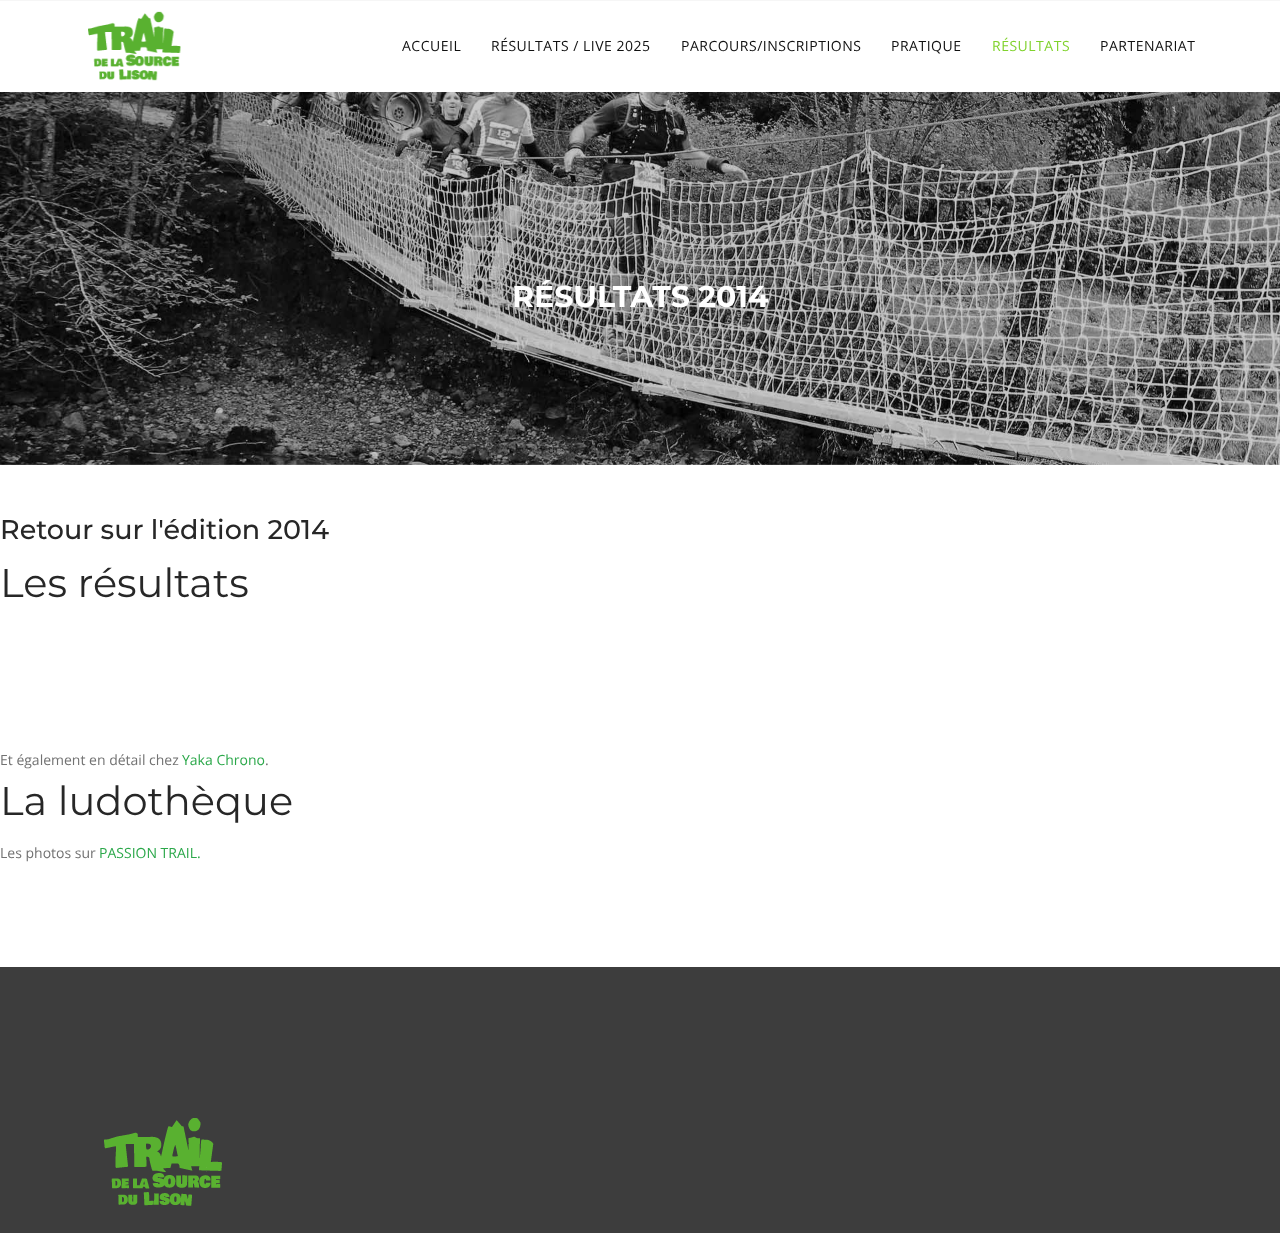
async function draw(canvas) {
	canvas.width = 1280;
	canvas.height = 1233;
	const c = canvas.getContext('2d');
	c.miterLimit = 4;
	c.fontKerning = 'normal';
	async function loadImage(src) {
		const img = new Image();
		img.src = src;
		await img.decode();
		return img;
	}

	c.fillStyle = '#fff';
	c.fillRect(0, 0, 1280, 1233);
	c.fillStyle = '#f6f6f6';
	c.fillRect(0, 0, 1280, 1);
	c.drawImage(await loadImage('img1.png'), 88, 11, 93, 70);
	c.letterSpacing = '0.5px';
	c.font = '14px Open Sans';
	c.fillStyle = '#101010';
	for (const [text, x, y] of [
		['ACCUEIL', 402, 51],
		['RÉSULTATS / LIVE 2025', 491, 51],
		['PARCOURS/INSCRIPTIONS', 681, 51],
		['PRATIQUE', 891, 51],
	]) {
		c.fillText(text, x, y);
	}
	c.fillStyle = '#80d22d';
	c.fillText('RÉSULTATS', 992, 51);
	c.fillStyle = '#101010';
	c.fillText('PARTENARIAT', 1100, 51);
	c.drawImage(await loadImage('img2.png'), 0, 92, 1280, 373);
	c.letterSpacing = '0px';
	c.font = 'bold 30px Montserrat';
	c.fillStyle = '#fff';
	c.fillText('RÉSULTATS 2014', 512, 307);
	c.font = '500 27px Montserrat';
	c.fillStyle = '#272727';
	c.fillText('Retour sur l\'édition 2014', 0, 539);
	c.font = '40px Montserrat';
	c.fillText('Les résultats', 0, 597);
	c.font = '14px Open Sans';
	c.fillStyle = '#727272';
	c.fillText('Et également en détail chez', 0, 765);
	c.fillStyle = '#2ba84a';
	c.fillText('Yaka Chrono', 182, 765);
	c.fillStyle = '#727272';
	c.fillText('.', 265, 765);
	c.font = '40px Montserrat';
	c.fillStyle = '#272727';
	c.fillText('La ludothèque', 0, 815);
	c.font = '14px Open Sans';
	c.fillStyle = '#727272';
	c.fillText('Les photos sur', 0, 858);
	c.fillStyle = '#2ba84a';
	c.fillText('PASSION TRAIL.', 99, 858);
	c.fillStyle = '#3d3d3d';
	c.fillRect(0, 967, 1280, 266);
	c.drawImage(await loadImage('img3.png'), 104, 1118, 118, 88);
}

draw(document.querySelector('canvas'));
